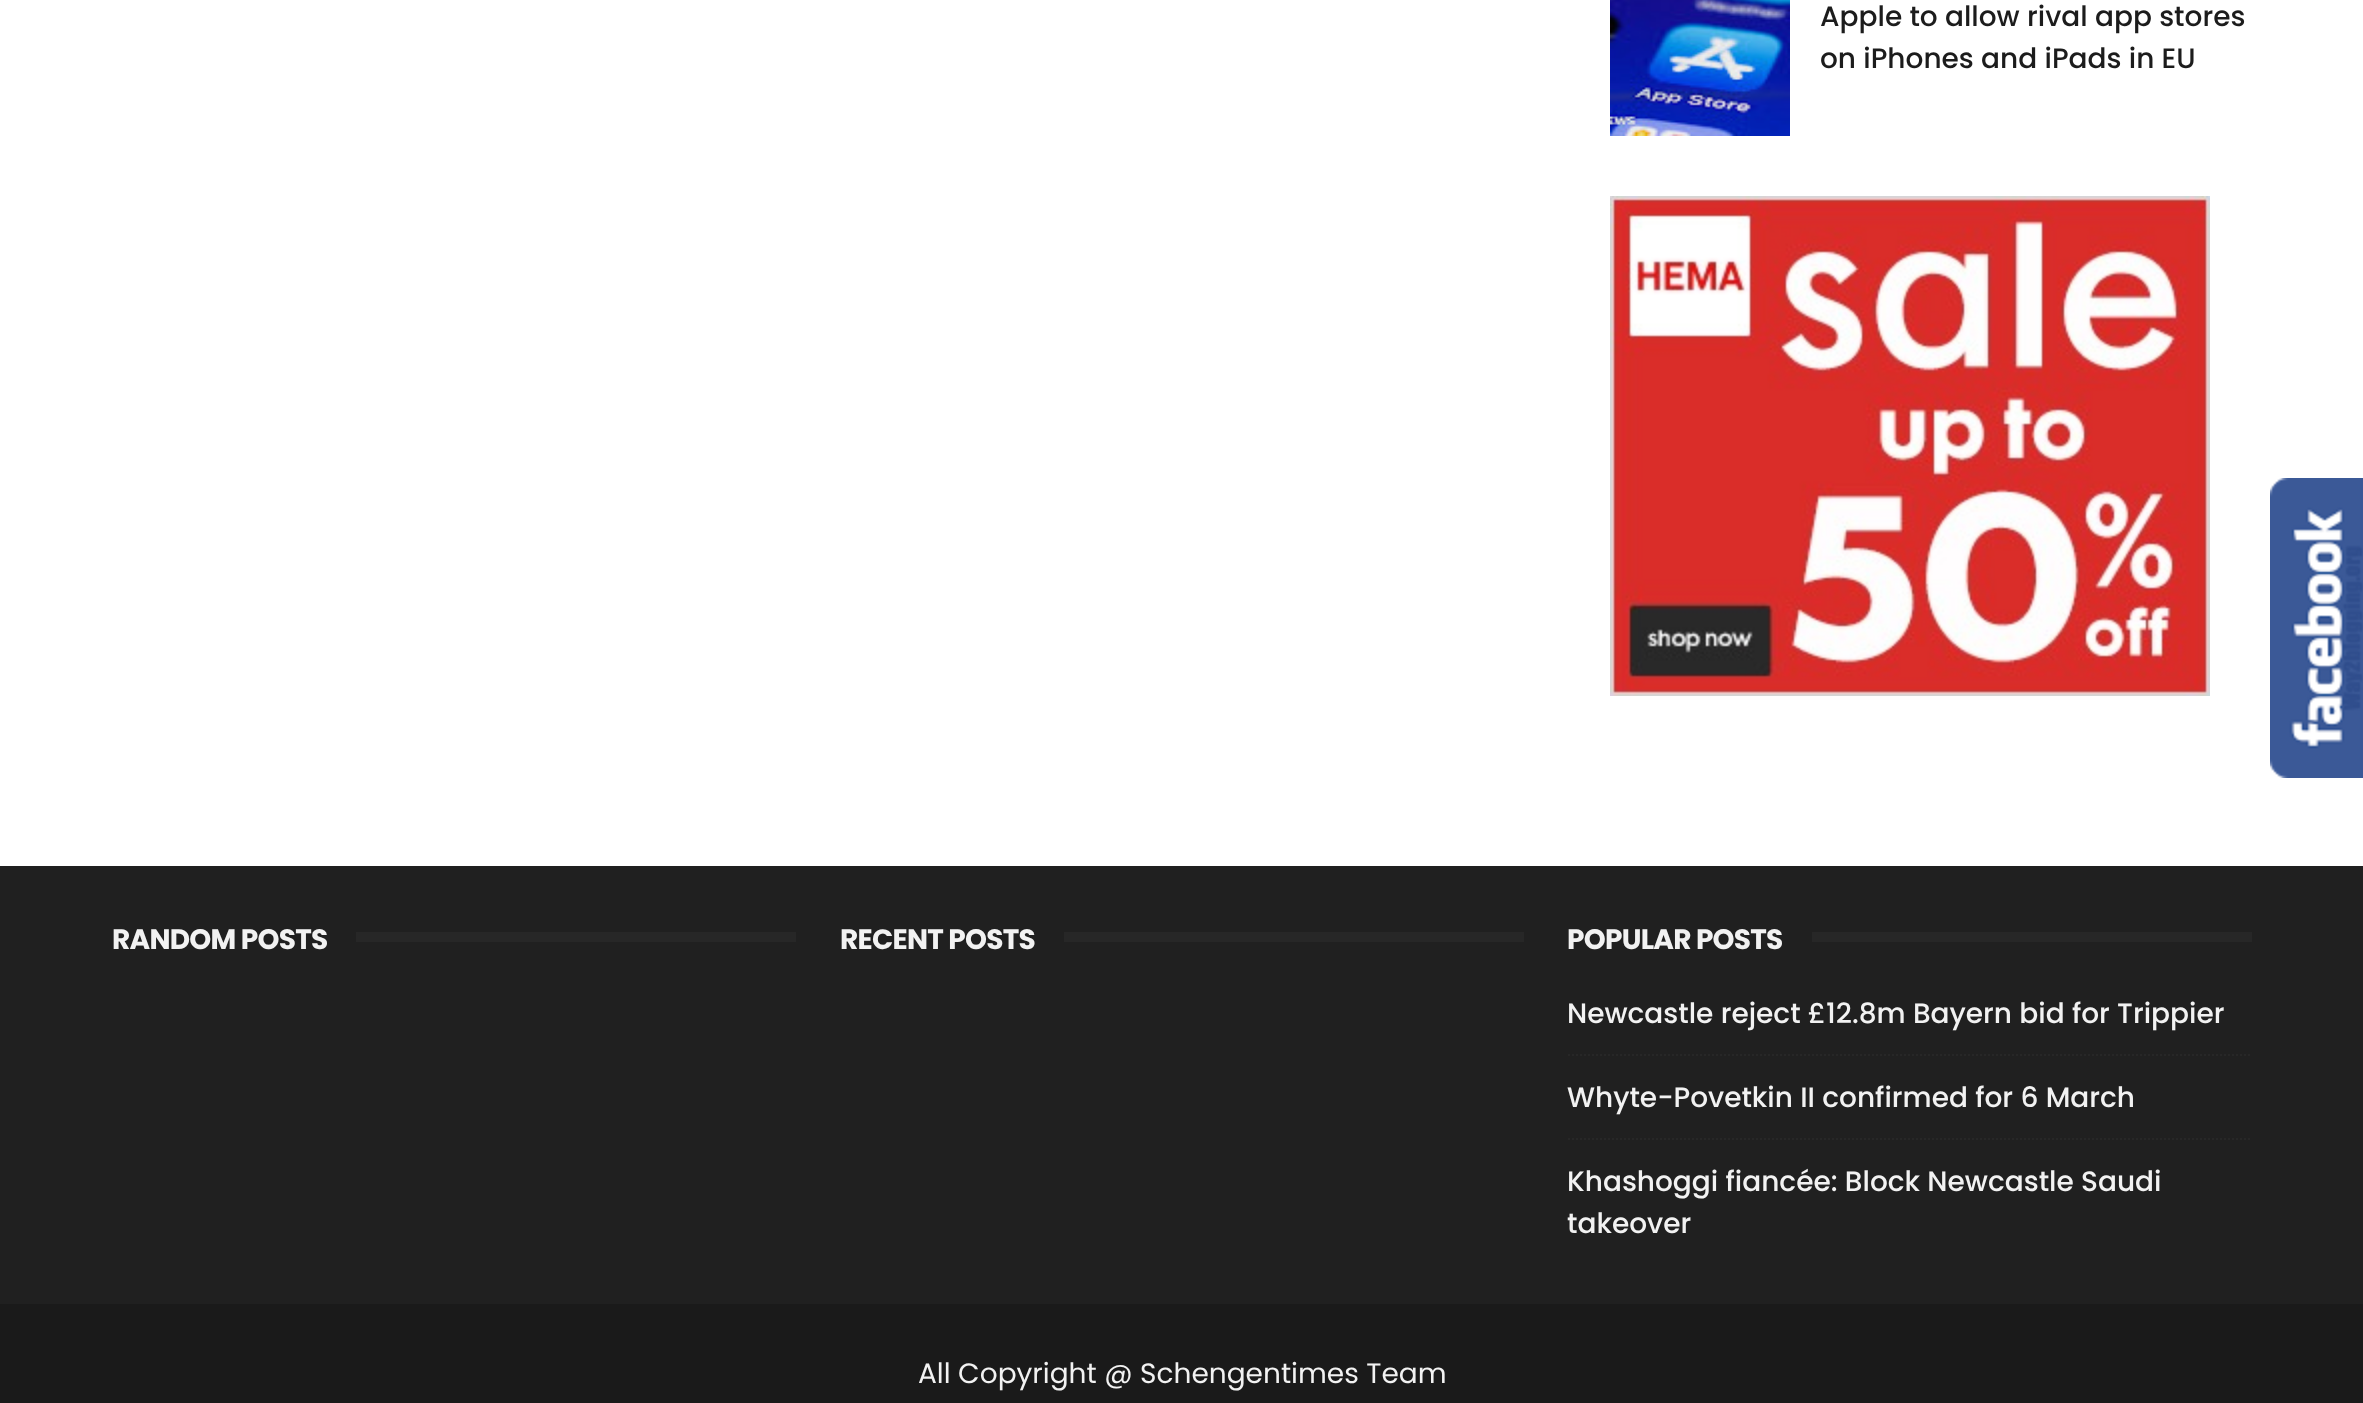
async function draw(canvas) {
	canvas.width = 2363;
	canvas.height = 1403;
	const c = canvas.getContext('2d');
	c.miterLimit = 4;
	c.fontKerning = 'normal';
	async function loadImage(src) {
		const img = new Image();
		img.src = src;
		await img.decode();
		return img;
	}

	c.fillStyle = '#fff';
	c.fillRect(0, 0, 2363, 1403);
	c.drawImage(await loadImage('img1.png'), 1610, 0, 180, 136);
	c.font = '500 28px Poppins';
	c.fillStyle = '#1c1c1c';
	c.fillText('Apple to allow rival app stores', 1820, 26);
	c.fillText('on iPhones and iPads in EU', 1820, 68);
	c.drawImage(await loadImage('img2.png'), 1610, 196, 600, 500);
	c.drawImage(await loadImage('img3.png'), 2270, 478, 93, 300);
	c.fillStyle = '#202020';
	c.fillRect(0, 866, 2363, 438);
	c.letterSpacing = '-0.75px';
	c.font = 'bold 28px Poppins';
	c.fillStyle = '#f2f2f2';
	c.fillText('RANDOM POSTS', 112, 949);
	c.fillStyle = '#272727';
	c.fillRect(356, 932, 440, 10);
	c.fillStyle = '#f2f2f2';
	c.fillText('RECENT POSTS', 840, 949);
	c.fillStyle = '#272727';
	c.fillRect(1064, 932, 460, 10);
	c.fillStyle = '#f2f2f2';
	c.fillText('POPULAR POSTS', 1567, 949);
	c.fillStyle = '#272727';
	c.fillRect(1812, 932, 440, 10);
	c.letterSpacing = '0px';
	c.font = '500 28px Poppins';
	c.fillStyle = '#f2f2f2';
	c.fillText('Newcastle reject £12.8m Bayern bid for Trippier', 1567, 1023);
	c.beginPath();
	c.moveTo(1568, 1055);
	c.lineTo(2252, 1055);
	c.strokeStyle = '#272727';
	c.lineWidth = 2;
	c.setLineDash([2, 2]);
	c.stroke();
	c.fillText('Whyte-Povetkin II confirmed for 6 March', 1567, 1107);
	c.beginPath();
	c.moveTo(1568, 1139);
	c.lineTo(2252, 1139);
	c.stroke();
	c.fillText('Khashoggi fiancée: Block Newcastle Saudi', 1567, 1191);
	c.fillText('takeover', 1567, 1233);
	c.fillStyle = '#1a1a1a';
	c.fillRect(0, 1304, 2363, 99);
	c.font = '28px Poppins';
	c.fillStyle = '#f2f2f2';
	c.fillText('All Copyright @ Schengentimes Team', 918, 1383);
}

draw(document.querySelector('canvas'));
